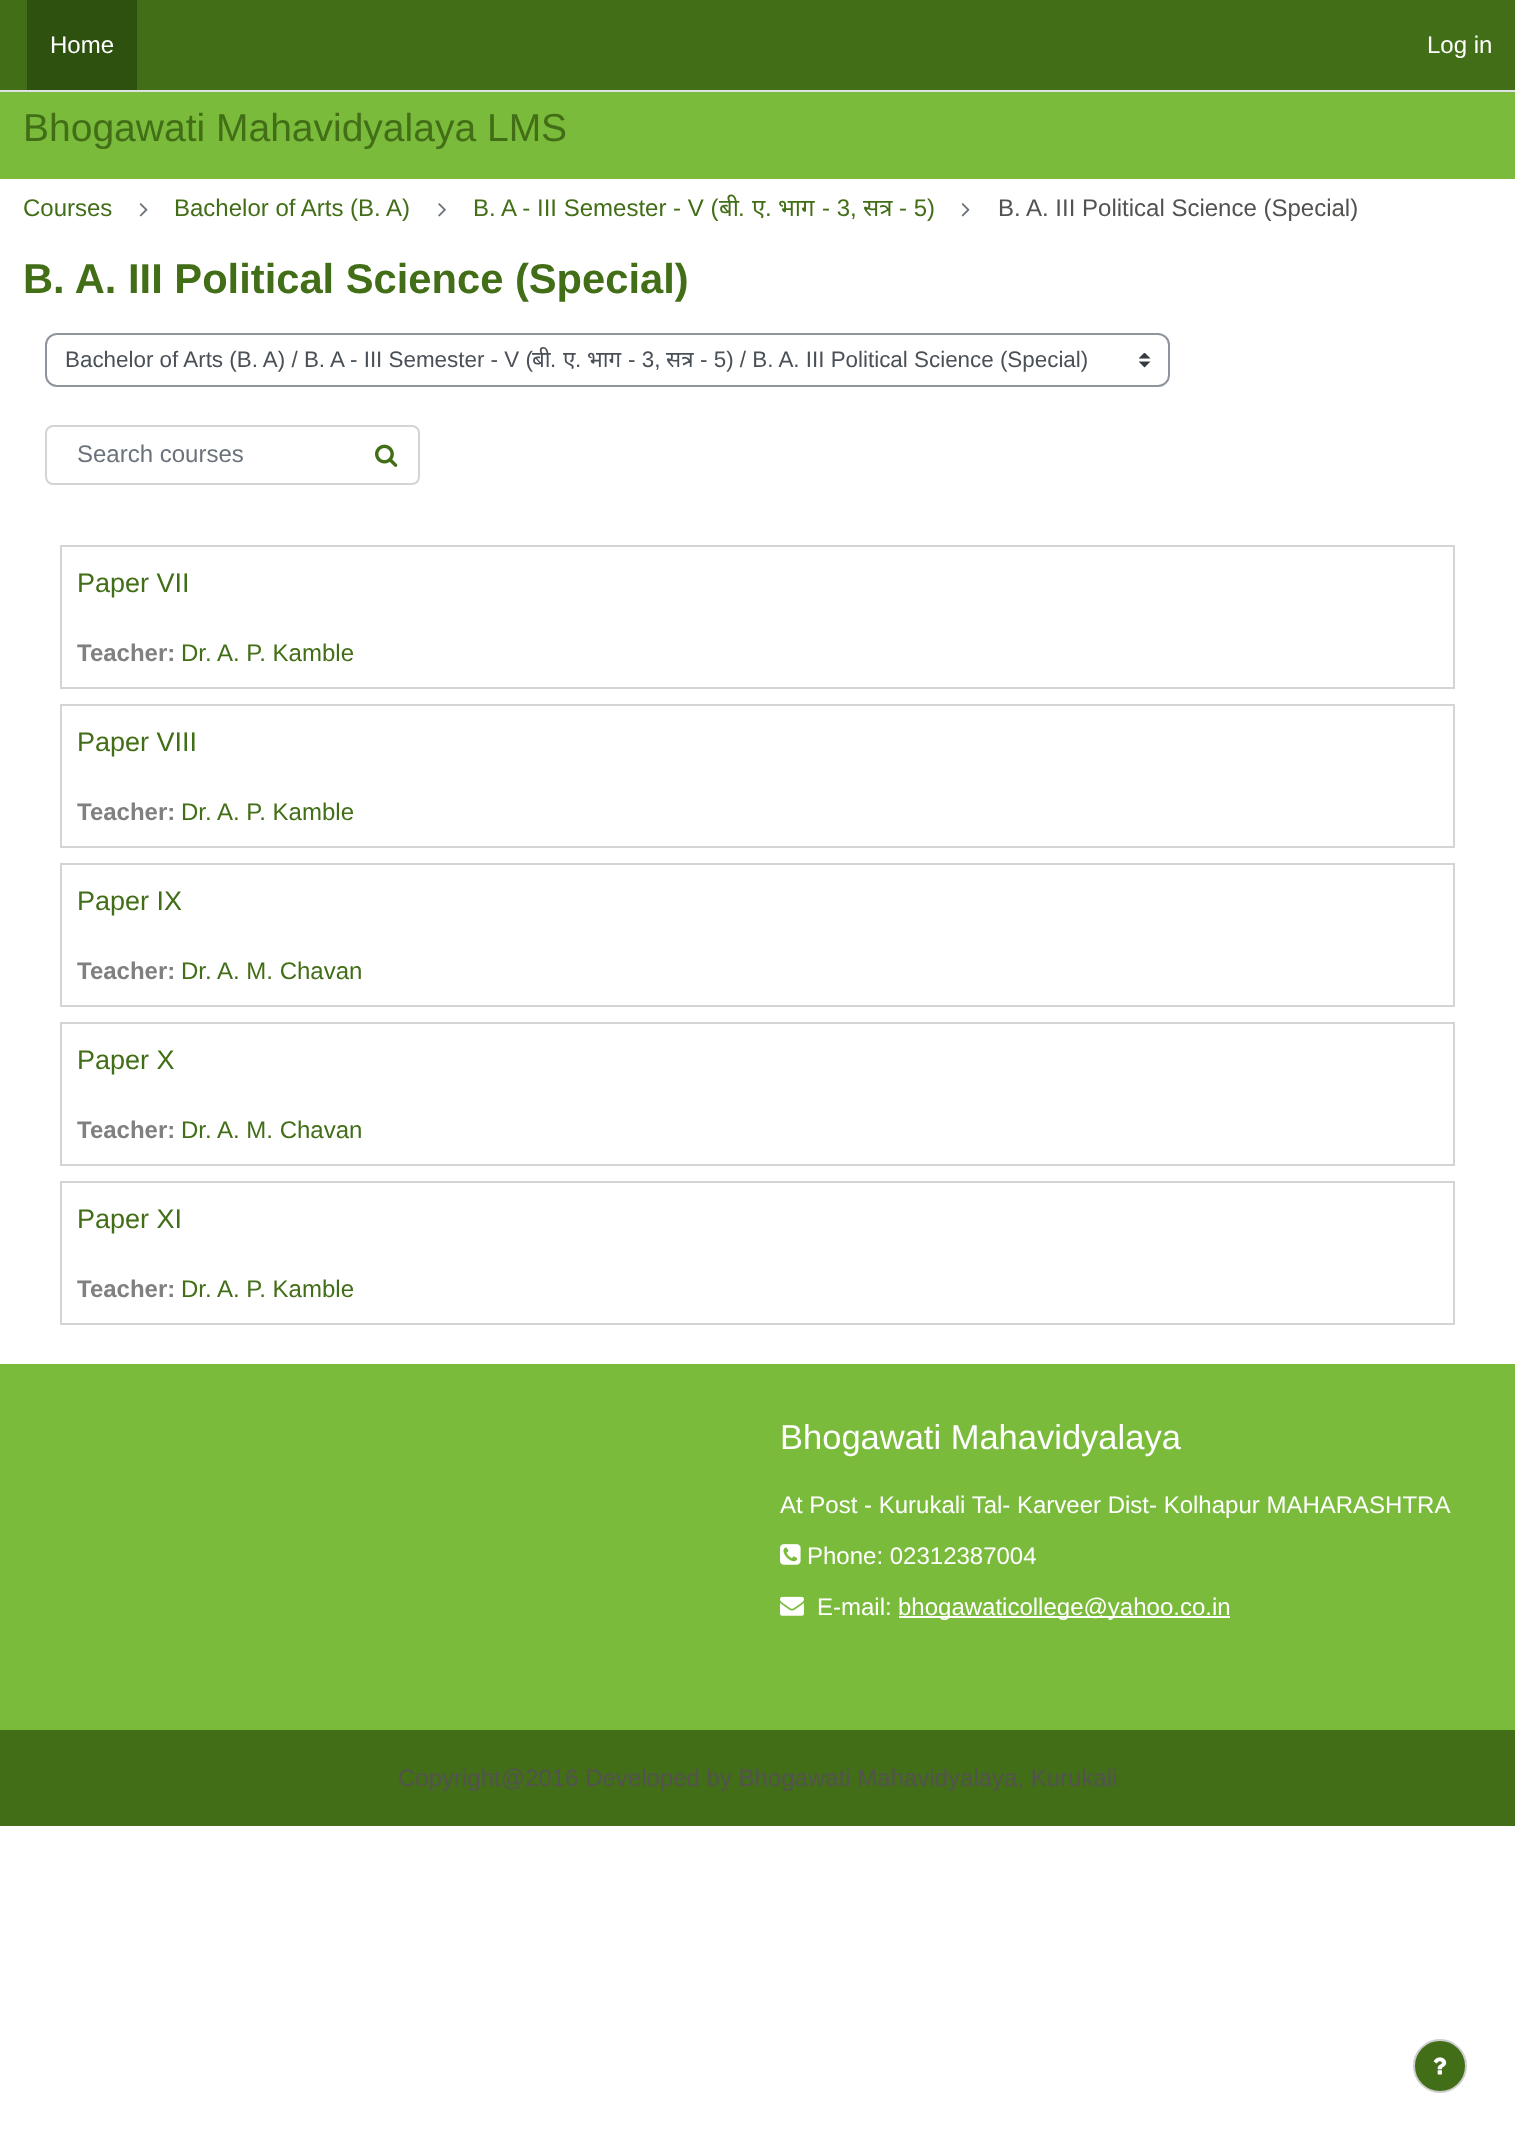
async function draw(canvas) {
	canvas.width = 1515;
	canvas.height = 2140;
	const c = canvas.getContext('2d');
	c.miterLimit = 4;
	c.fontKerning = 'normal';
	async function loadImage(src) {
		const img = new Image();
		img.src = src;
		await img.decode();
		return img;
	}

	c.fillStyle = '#fff';
	c.fillRect(0, 0, 1515, 2140);
	for (const [x, y, w, h, color] of [
		[0, 0, 1515, 90, '#426e17'],
		[0, 90, 1515, 2, '#dee2e6'],
		[27, 0, 110, 90, '#2f510f'],
	]) {
		c.fillStyle = color;
		c.fillRect(x, y, w, h);
	}
	c.font = '24px Liberation Sans';
	c.fillStyle = '#fff';
	c.fillText('Home', 50, 53);
	c.fillText('Log in', 1427, 53);
	c.fillStyle = '#7abb3b';
	c.fillRect(0, 92, 1515, 87);
	c.font = '39px Liberation Sans';
	c.fillStyle = '#426e17';
	c.fillText('Bhogawati Mahavidyalaya LMS', 23, 141);
	c.font = '24px Liberation Sans';
	c.fillText('Courses', 23, 216);
	c.drawImage(await loadImage('img1.png'), 139, 203, 9, 14);
	c.fillText('Bachelor of Arts (B. A)', 174, 216);
	c.drawImage(await loadImage('img2.png'), 438, 203, 8, 14);
	c.fillText('B. A - III Semester - V (', 473, 216);
	c.font = '24px Noto Sans';
	c.fillText('बी', 719, 216);
	c.font = '24px Liberation Sans';
	c.fillText('.', 738, 216);
	c.font = '24px Noto Sans';
	c.fillText('ए', 752, 216);
	c.font = '24px Liberation Sans';
	c.fillText('.', 765, 216);
	c.font = '24px Noto Sans';
	c.fillText('भाग', 778, 216);
	c.font = '24px Liberation Sans';
	c.fillText('- 3,', 822, 216);
	c.font = '24px Noto Sans';
	c.fillText('सत्र', 863, 216);
	c.font = '24px Liberation Sans';
	c.fillText('- 5)', 899, 216);
	c.drawImage(await loadImage('img1.png'), 961, 203, 9, 14);
	c.fillStyle = '#545251';
	c.fillText('B. A. III Political Science (Special)', 998, 216);
	c.font = 'bold 41.7px Liberation Sans';
	c.fillStyle = '#426e17';
	c.fillText('B. A. III Political Science (Special)', 23, 293);
	c.drawImage(await loadImage('img3.png'), 1139, 353, 12, 15);
	c.beginPath();
	c.roundRect(46, 334, 1123, 52, 11);
	c.strokeStyle = '#8f959e';
	c.lineWidth = 2;
	c.stroke();
	c.font = '22.4px Liberation Sans';
	c.fillStyle = '#495057';
	c.fillText('Bachelor of Arts (B. A) / B. A - III Semester - V (', 65, 367);
	c.font = '22.4px Noto Sans';
	c.fillText('बी', 532, 367);
	c.font = '22.4px Liberation Sans';
	c.fillText('.', 550, 367);
	c.font = '22.4px Noto Sans';
	c.fillText('ए', 563, 367);
	c.font = '22.4px Liberation Sans';
	c.fillText('.', 575, 367);
	c.font = '22.4px Noto Sans';
	c.fillText('भाग', 587, 367);
	c.font = '22.4px Liberation Sans';
	c.fillText('- 3,', 628, 367);
	c.font = '22.4px Noto Sans';
	c.fillText('सत्र', 666, 367);
	c.font = '22.4px Liberation Sans';
	c.fillText('- 5) / B. A. III Political Science (Special)', 700, 367);
	c.beginPath();
	c.roundRect(46, 426, 373, 58, 7);
	c.strokeStyle = '#d4d4d4';
	c.stroke();
	c.font = '24px Liberation Sans';
	c.fillStyle = '#6a737b';
	c.fillText('Search courses', 77, 462);
	c.drawImage(await loadImage('img4.png'), 375, 444, 23, 23);
	c.strokeRect(61, 546, 1393, 142);
	c.font = '27px Liberation Sans';
	c.fillStyle = '#426e17';
	c.fillText('Paper VII', 77, 592);
	c.font = 'bold 24px Liberation Sans';
	c.fillStyle = '#808080';
	c.fillText('Teacher:', 77, 661);
	c.font = '24px Liberation Sans';
	c.fillStyle = '#426e17';
	c.fillText('Dr. A. P. Kamble', 181, 661);
	c.strokeRect(61, 705, 1393, 142);
	c.font = '27px Liberation Sans';
	c.fillText('Paper VIII', 77, 751);
	c.font = 'bold 24px Liberation Sans';
	c.fillStyle = '#808080';
	c.fillText('Teacher:', 77, 820);
	c.font = '24px Liberation Sans';
	c.fillStyle = '#426e17';
	c.fillText('Dr. A. P. Kamble', 181, 820);
	c.strokeRect(61, 864, 1393, 142);
	c.font = '27px Liberation Sans';
	c.fillText('Paper IX', 77, 910);
	c.font = 'bold 24px Liberation Sans';
	c.fillStyle = '#808080';
	c.fillText('Teacher:', 77, 979);
	c.font = '24px Liberation Sans';
	c.fillStyle = '#426e17';
	c.fillText('Dr. A. M. Chavan', 181, 979);
	c.strokeRect(61, 1023, 1393, 142);
	c.font = '27px Liberation Sans';
	c.fillText('Paper X', 77, 1069);
	c.font = 'bold 24px Liberation Sans';
	c.fillStyle = '#808080';
	c.fillText('Teacher:', 77, 1138);
	c.font = '24px Liberation Sans';
	c.fillStyle = '#426e17';
	c.fillText('Dr. A. M. Chavan', 181, 1138);
	c.strokeRect(61, 1182, 1393, 142);
	c.font = '27px Liberation Sans';
	c.fillText('Paper XI', 77, 1228);
	c.font = 'bold 24px Liberation Sans';
	c.fillStyle = '#808080';
	c.fillText('Teacher:', 77, 1297);
	c.font = '24px Liberation Sans';
	c.fillStyle = '#426e17';
	c.fillText('Dr. A. P. Kamble', 181, 1297);
	c.fillStyle = '#7abb3b';
	c.fillRect(0, 1364, 1515, 366);
	c.font = '34.5px Liberation Sans';
	c.fillStyle = '#fff';
	c.fillText('Bhogawati Mahavidyalaya', 780, 1449);
	c.font = '24px Liberation Sans';
	c.fillText('At Post - Kurukali Tal- Karveer Dist- Kolhapur MAHARASHTRA', 780, 1513);
	c.drawImage(await loadImage('img5.png'), 780, 1544, 21, 21);
	c.fillText('Phone: 02312387004', 807, 1564);
	c.drawImage(await loadImage('img6.png'), 780, 1596, 24, 20);
	c.fillText('E-mail:', 817, 1615);
	c.fillRect(899, 1616, 331, 2);
	c.fillText('bhogawaticollege@yahoo.co.in', 898, 1615);
	c.fillStyle = '#426e17';
	c.fillRect(0, 1730, 1515, 96);
	c.fillStyle = '#545251';
	c.fillText('Copyright@2016 Developed by Bhogawati Mahavidyalaya, Kurukali', 398, 1786);
	c.fillStyle = '#426e17';
	c.beginPath();
	c.arc(1440, 2066, 26, 0, 2 * Math.PI);
	c.fill();
	c.strokeStyle = '#cdcdcd';
	c.stroke();
	c.drawImage(await loadImage('img7.png'), 1433, 2057, 14, 18);
}

draw(document.querySelector('canvas'));
